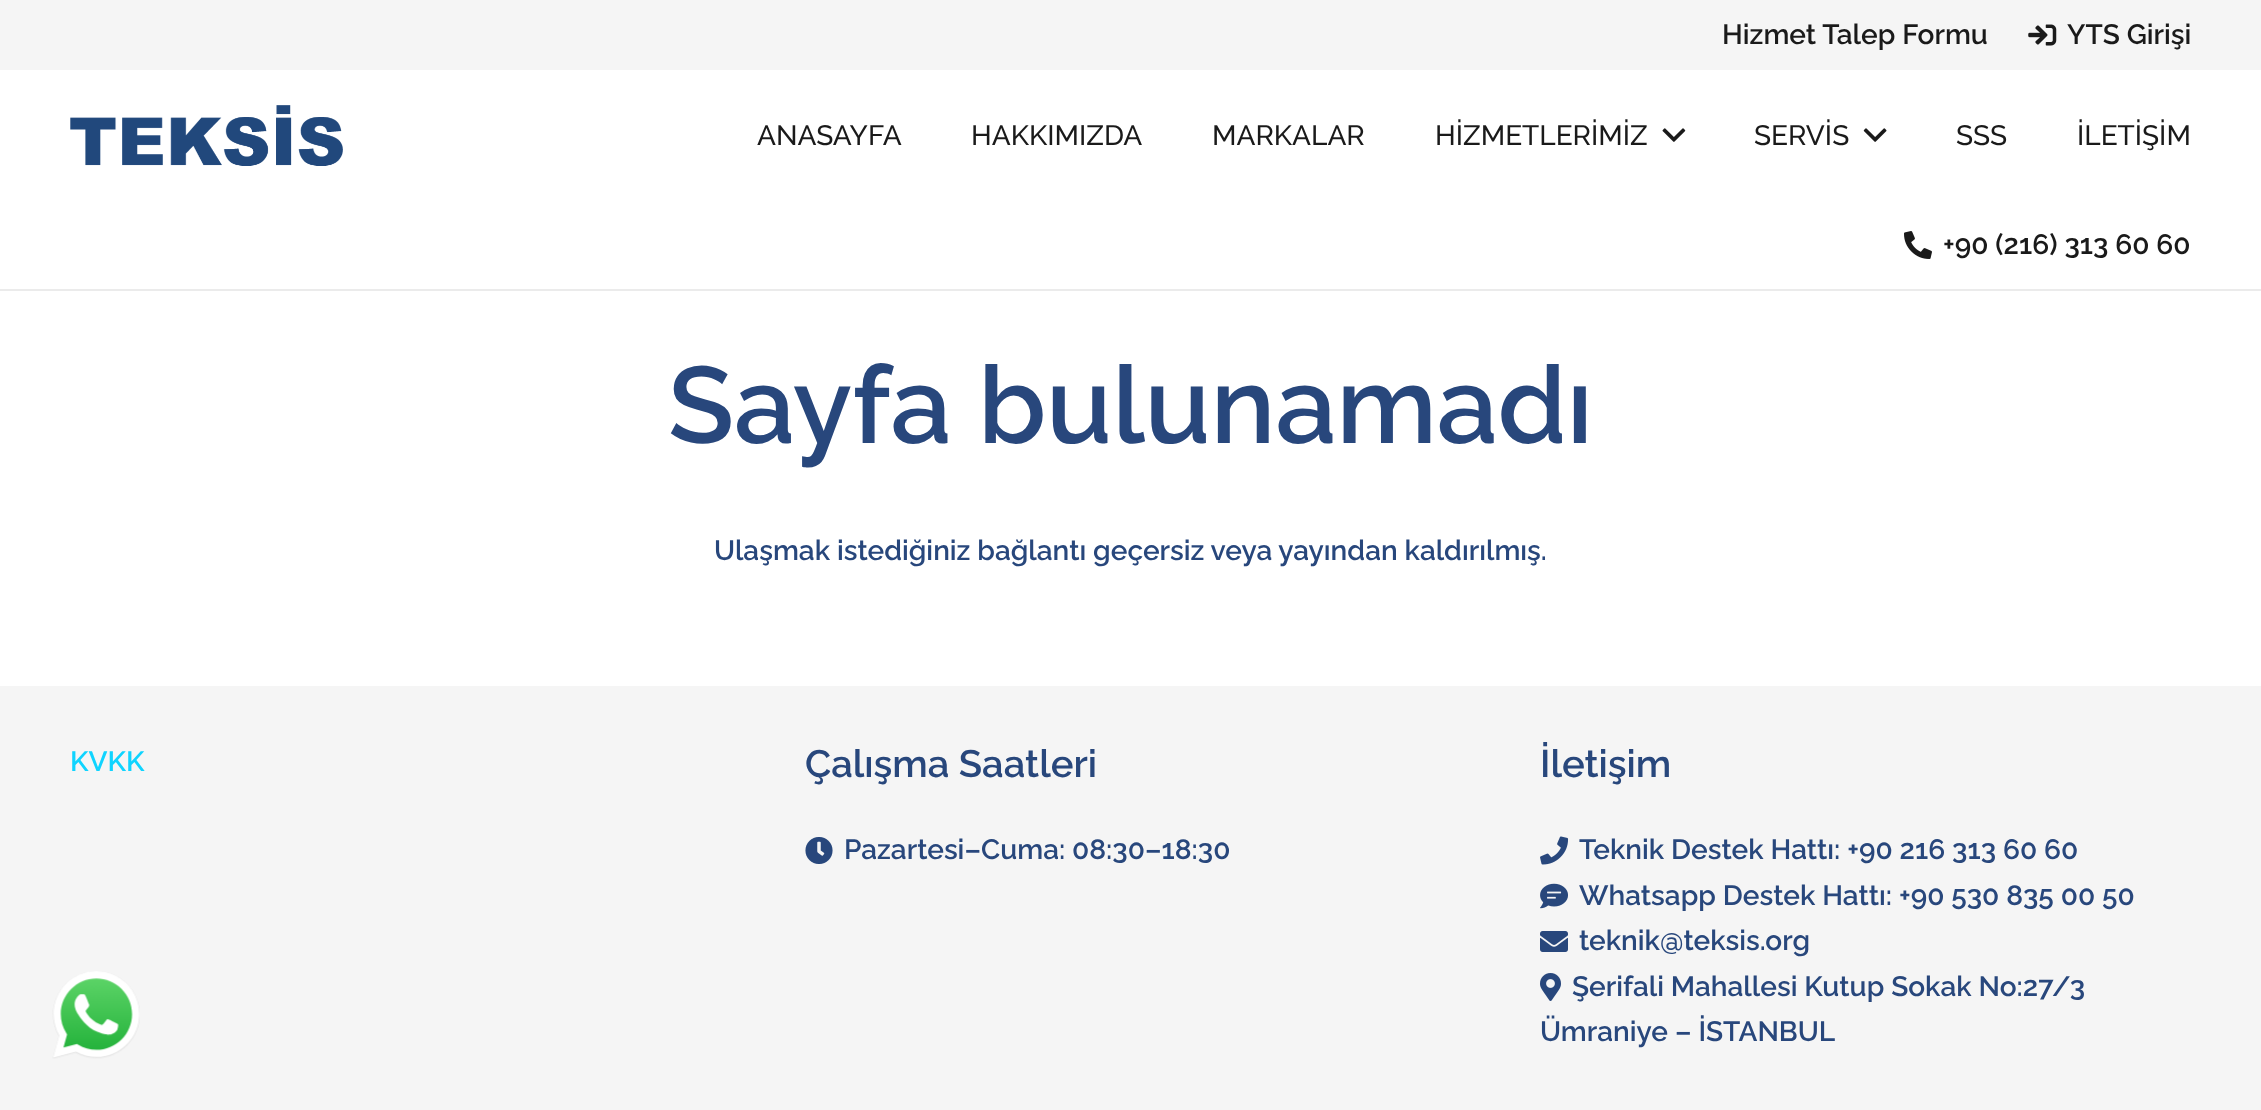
async function draw(canvas) {
	canvas.width = 2261;
	canvas.height = 1110;
	const c = canvas.getContext('2d');
	c.miterLimit = 4;
	c.fontKerning = 'normal';
	async function loadImage(src) {
		const img = new Image();
		img.src = src;
		await img.decode();
		return img;
	}

	c.fillStyle = '#f5f5f5';
	c.fillRect(0, 0, 2261, 1110);
	c.fillStyle = '#fff';
	c.fillRect(0, 70, 2261, 616);
	c.font = '600 28px Raleway';
	c.fillStyle = '#1a1a1a';
	c.fillText('Hizmet Talep Formu', 1722, 44);
	c.drawImage(await loadImage('img1.png'), 2028, 24, 29, 22);
	c.fillText('YTS Girişi', 2067, 44);
	c.drawImage(await loadImage('img2.png'), 70, 105, 273, 61);
	c.font = '500 28px Raleway';
	for (const [text, x, y] of [
		['ANASAYFA', 757, 145],
		['HAKKIMIZDA', 971, 145],
		['MARKALAR', 1212, 145],
		['HİZMETLERİMİZ', 1435, 145],
	]) {
		c.fillText(text, x, y);
	}
	c.drawImage(await loadImage('img3.png'), 1662, 128, 24, 14);
	c.fillText('SERVİS', 1754, 145);
	c.drawImage(await loadImage('img4.png'), 1863, 128, 24, 14);
	c.fillText('SSS', 1956, 145);
	c.fillText('İLETİŞİM', 2077, 145);
	c.fillStyle = '#ebebeb';
	c.fillRect(0, 289, 2261, 2);
	c.drawImage(await loadImage('img5.png'), 1904, 231, 28, 28);
	c.font = '600 28px Raleway';
	c.fillStyle = '#1a1a1a';
	c.fillText('+90 (216) 313 60 60', 1943, 254);
	c.font = '600 108.25px Raleway';
	c.fillStyle = '#28477c';
	c.fillText('Sayfa bulunamadı', 668, 443);
	c.font = '600 28px Raleway';
	c.fillText('Ulaşmak istediğiniz bağlantı geçersiz veya yayından kaldırılmış.', 714, 560);
	c.fillStyle = '#0fd4ff';
	c.fillText('KVKK', 70, 771);
	c.font = '600 38.25px Raleway';
	c.fillStyle = '#28477c';
	c.fillText('Çalışma Saatleri', 805, 777);
	c.drawImage(await loadImage('img6.png'), 805, 837, 28, 27);
	c.font = '600 28px Raleway';
	c.fillText('Pazartesi–Cuma: 08:30–18:30', 844, 859);
	c.font = '600 38.25px Raleway';
	c.fillText('İletişim', 1540, 777);
	c.drawImage(await loadImage('img7.png'), 1540, 836, 29, 29);
	c.font = '600 28px Raleway';
	c.fillText('Teknik Destek Hattı: +90 216 313 60 60', 1579, 859);
	c.drawImage(await loadImage('img8.png'), 1540, 883, 28, 26);
	c.fillText('Whatsapp Destek Hattı: +90 530 835 00 50', 1579, 905);
	c.drawImage(await loadImage('img9.png'), 1540, 931, 28, 21);
	c.fillText('teknik@teksis.org', 1579, 950);
	c.drawImage(await loadImage('img10.png'), 1540, 973, 21, 28);
	c.fillText('Şerifali Mahallesi Kutup Sokak No:27/3', 1572, 996);
	c.fillText('Ümraniye – İSTANBUL', 1540, 1041);
	c.drawImage(await loadImage('img11.png'), 52, 971, 88, 88);
}

draw(document.querySelector('canvas'));
